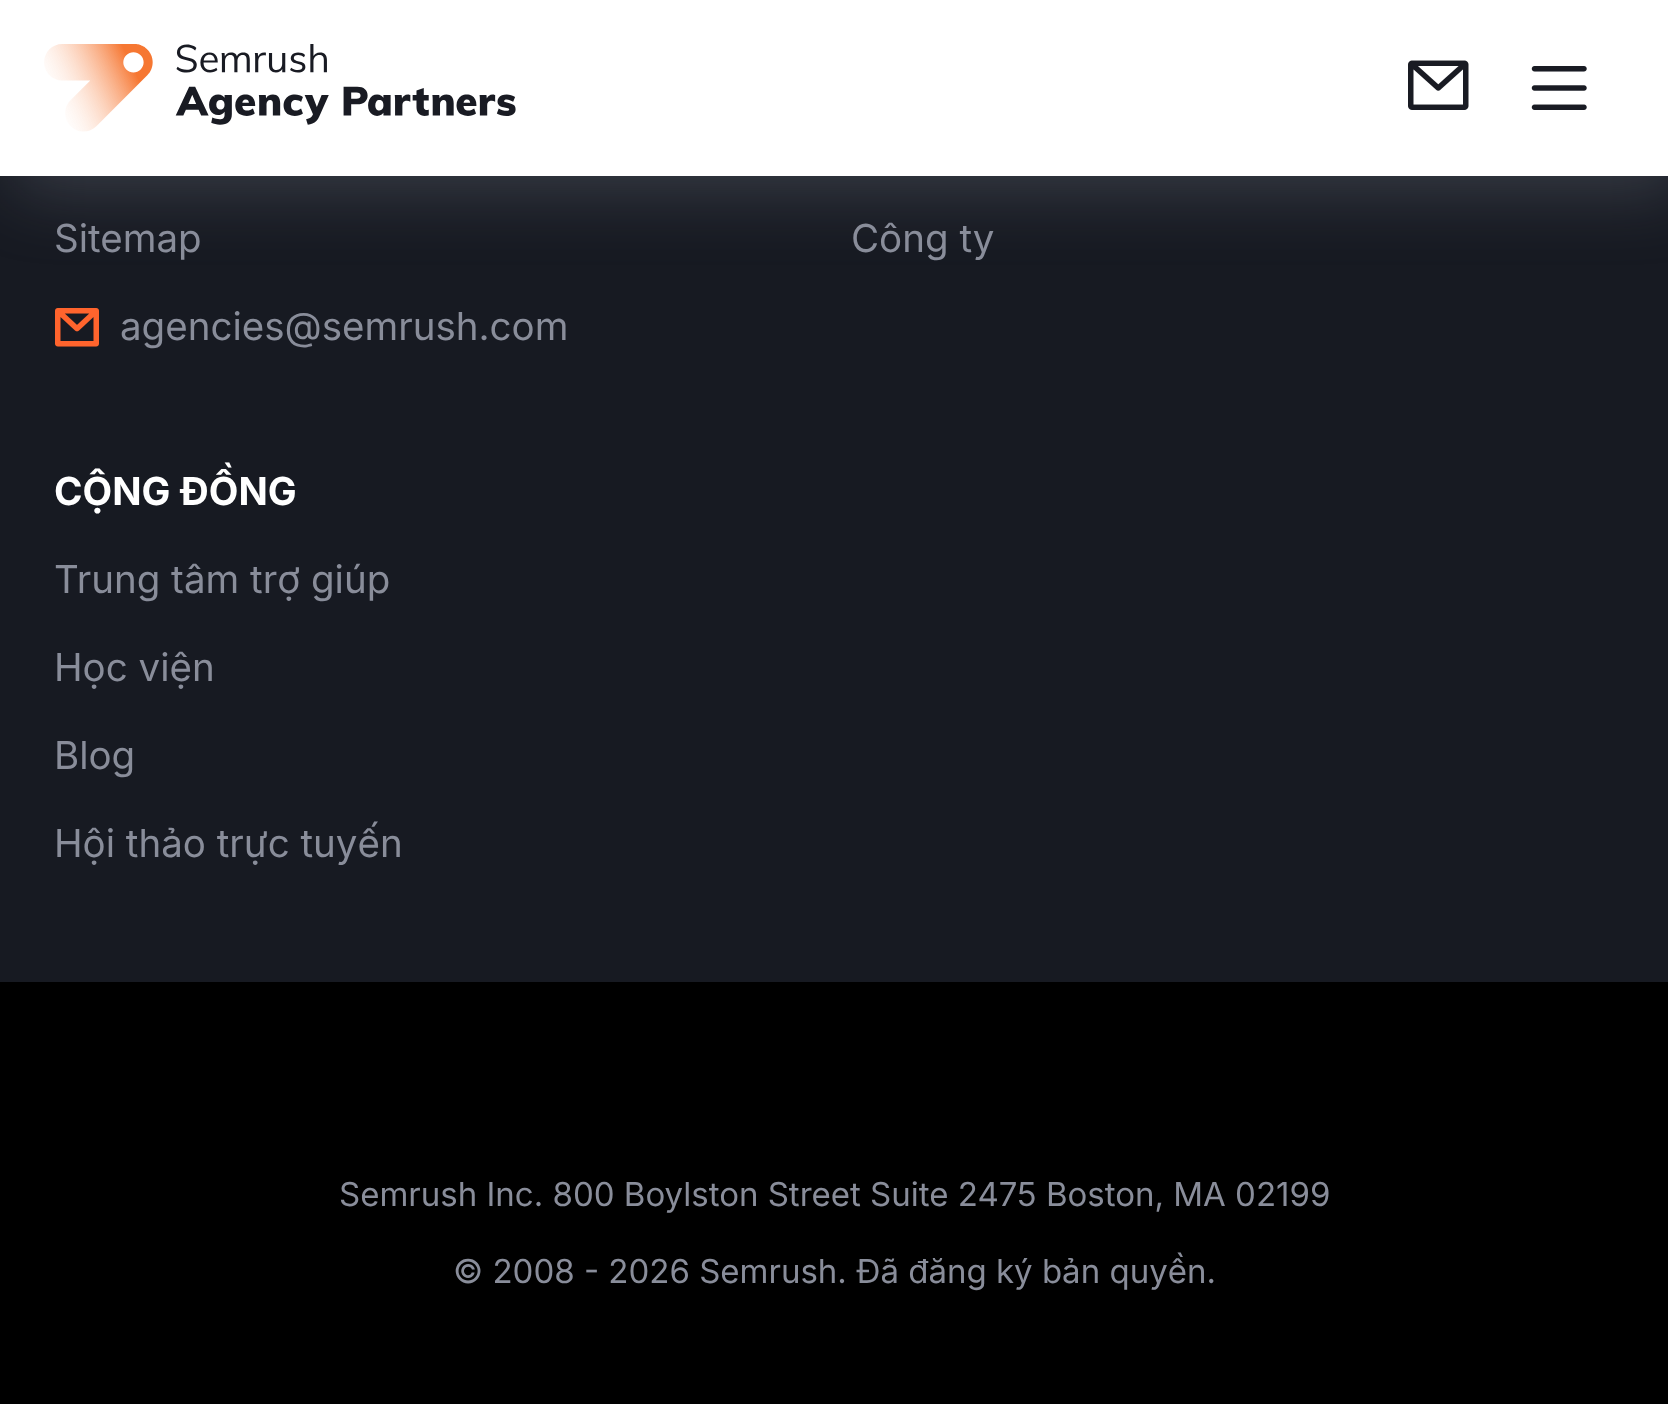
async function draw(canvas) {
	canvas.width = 1668;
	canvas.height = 1404;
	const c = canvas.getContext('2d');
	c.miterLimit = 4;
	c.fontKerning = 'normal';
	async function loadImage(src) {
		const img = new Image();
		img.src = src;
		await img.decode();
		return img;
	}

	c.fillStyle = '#171a22';
	c.fillRect(0, 0, 1668, 1404);
	c.fillStyle = '#898d9a4d';
	c.filter = 'blur(34.5px)';
	c.beginPath();
	c.rect(14, 14, 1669, 176);
	c.fill();
	c.filter = 'none';
	c.fillStyle = '#fff';
	c.fillRect(0, 0, 1668, 176);
	c.drawImage(await loadImage('img1.png'), 44, 44, 472, 88);
	c.drawImage(await loadImage('img2.png'), 1408, 60, 61, 50);
	c.drawImage(await loadImage('img3.png'), 1531, 66, 56, 44);
	c.font = '38.5px Inter';
	c.fillStyle = '#898d9a';
	c.fillText('Sitemap', 54, 252);
	c.drawImage(await loadImage('img4.png'), 55, 308, 44, 39);
	c.fillText('agencies@semrush.com', 120, 340);
	c.fillText('Công ty', 851, 252);
	c.font = 'bold 38.5px Inter';
	c.fillStyle = '#fff';
	c.fillText('CỘNG ĐỒNG', 54, 505);
	c.font = '38.5px Inter';
	c.fillStyle = '#898d9a';
	for (const [text, x, y] of [
		['Trung tâm trợ giúp', 54, 593],
		['Học viện', 54, 681],
		['Blog', 54, 769],
		['Hội thảo trực tuyến', 54, 857],
	]) {
		c.fillText(text, x, y);
	}
	c.fillStyle = '#000';
	c.fillRect(0, 982, 1668, 422);
	c.font = '33px Inter';
	c.fillStyle = '#898d9a';
	c.fillText('Semrush Inc. 800 Boylston Street Suite 2475 Boston, MA 02199', 339, 1206);
	c.fillText('© 2008 - 2026 Semrush. Đã đăng ký bản quyền.', 453, 1283);
}

draw(document.querySelector('canvas'));
